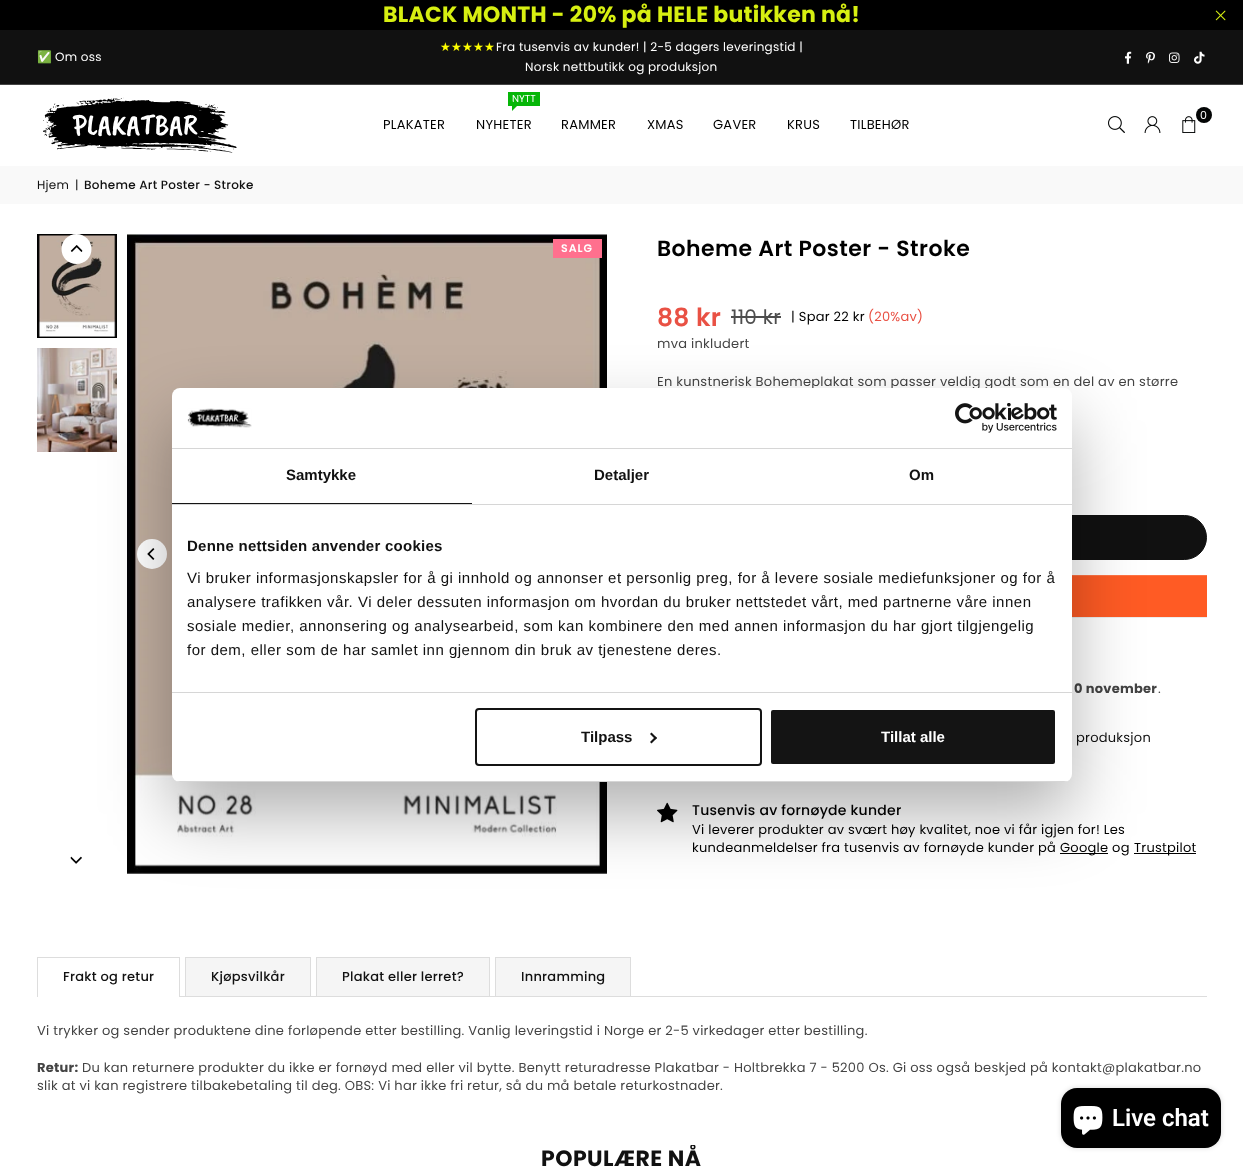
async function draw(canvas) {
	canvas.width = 1243;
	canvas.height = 1169;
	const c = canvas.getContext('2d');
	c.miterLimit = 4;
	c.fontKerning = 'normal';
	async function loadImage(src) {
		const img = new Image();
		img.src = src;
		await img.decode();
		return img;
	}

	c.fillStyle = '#fff';
	c.fillRect(0, 0, 1243, 1169);
	c.fillStyle = '#000';
	c.fillRect(0, 0, 1243, 30);
	c.letterSpacing = '0.26px';
	c.font = 'bold 22px Poppins';
	c.fillStyle = '#d7ef11';
	c.fillText('BLACK MONTH - 20% på HELE butikken nå!', 383, 22);
	c.drawImage(await loadImage('img1.png'), 1215, 10, 11, 11);
	c.fillStyle = '#111';
	c.fillRect(0, 30, 1243, 54);
	c.fillStyle = '#444';
	c.fillRect(0, 84, 1243, 1);
	c.font = '12px Noto Color Emoji';
	c.fillStyle = '#fff';
	c.fillText('✅', 37, 61);
	c.font = '12px Poppins';
	c.fillText('Om oss', 55, 61);
	c.font = '12px DejaVu Sans';
	c.fillStyle = '#ff0';
	c.fillText('★★★★★', 440, 51);
	c.font = '12px Poppins';
	c.fillStyle = '#fff';
	c.fillText('Fra tusenvis av kunder! | 2-5 dagers leveringstid |', 496, 51);
	c.fillText('Norsk nettbutikk og produksjon', 525, 71);
	c.drawImage(await loadImage('img2.png'), 1125, 51, 7, 13);
	c.drawImage(await loadImage('img3.png'), 1146, 51, 9, 13);
	c.drawImage(await loadImage('img4.png'), 1169, 52, 11, 11);
	c.drawImage(await loadImage('img5.png'), 1194, 51, 11, 13);
	c.drawImage(await loadImage('img6.png'), 43, 97, 194, 56);
	c.font = '13px Poppins';
	c.fillStyle = '#000';
	c.fillText('PLAKATER', 383, 129);
	c.fillStyle = '#06b608';
	c.fillRect(508, 92, 32, 14);
	c.letterSpacing = '0px';
	c.font = '10px Poppins';
	c.fillStyle = '#fff';
	c.fillText('NYTT', 512, 102);
	c.fillStyle = '#06b608';
	c.beginPath();
	c.moveTo(512, 111);
	c.lineTo(512, 101);
	c.lineTo(517, 106);
	c.closePath();
	c.fill();
	c.letterSpacing = '0.26px';
	c.font = '13px Poppins';
	c.fillStyle = '#000';
	for (const [text, x, y] of [
		['NYHETER', 476, 129],
		['RAMMER', 561, 129],
		['XMAS', 647, 129],
		['GAVER', 713, 129],
		['KRUS', 787, 129],
		['TILBEHØR', 850, 129],
	]) {
		c.fillText(text, x, y);
	}
	c.fillStyle = '#030505';
	c.beginPath();
	c.arc(1204, 115, 8, 0, 2 * Math.PI);
	c.fill();
	c.font = '11px Poppins';
	c.fillStyle = '#fff';
	c.fillText('0', 1200, 119);
	c.drawImage(await loadImage('img7.png'), 1182, 116, 14, 17);
	c.drawImage(await loadImage('img8.png'), 1108, 116, 17, 17);
	c.drawImage(await loadImage('img9.png'), 1144, 116, 17, 17);
	c.fillStyle = '#f9f9f9';
	c.fillRect(0, 166, 1243, 38);
	c.font = '12px Poppins';
	c.fillStyle = '#111';
	c.fillText('Hjem', 37, 189);
	c.fillText('|', 75, 189);
	c.font = '500 12px Poppins';
	c.fillText('Boheme Art Poster - Stroke', 84, 189);
	c.strokeStyle = '#000';
	c.strokeRect(37.5, 234.5, 79, 103);
	c.drawImage(await loadImage('img10.png'), 38, 235, 78, 102);
	c.drawImage(await loadImage('img11.png'), 37, 348, 80, 104);
	c.fillStyle = '#fff';
	c.beginPath();
	c.moveTo(91.5, 249);
	c.bezierCurveTo(91.5, 257.5, 85, 264, 76.5, 264);
	c.bezierCurveTo(68, 264, 61.5, 257.5, 61.5, 249);
	c.bezierCurveTo(61.5, 241, 68, 234, 76.5, 234);
	c.bezierCurveTo(85, 234, 91.5, 241, 91.5, 249);
	c.closePath();
	c.fill();
	c.drawImage(await loadImage('img12.png'), 70, 245, 13, 7);
	c.drawImage(await loadImage('img13.png'), 70, 856, 12, 8);
	c.drawImage(await loadImage('img14.png'), 127, 234, 480, 640);
	c.beginPath();
	c.arc(152, 554, 15, 0, 2 * Math.PI);
	c.fill();
	c.drawImage(await loadImage('img15.png'), 147, 548, 8, 12);
	c.fillStyle = '#ff708e';
	c.fillRect(553, 239, 49, 19);
	c.letterSpacing = '1px';
	c.font = '600 11px Poppins';
	c.fillStyle = '#fff';
	c.fillText('SALG', 561, 252);
	c.letterSpacing = '0.45px';
	c.font = '600 22px Poppins';
	c.fillStyle = '#000';
	c.fillText('Boheme Art Poster - Stroke', 657, 256);
	c.letterSpacing = '0.26px';
	c.font = '600 25px Poppins';
	c.fillStyle = '#e95144';
	c.fillText('88 kr', 657, 326);
	c.font = '20px Poppins';
	c.fillStyle = '#4d4d4d';
	c.fillText('110 kr', 731, 324);
	c.fillRect(731, 316, 50, 2);
	c.font = '13px Poppins';
	c.fillStyle = '#000';
	c.fillText('| Spar 22 kr', 791, 321);
	c.fillStyle = '#e95144';
	c.fillText('(20%av)', 868, 321);
	c.fillStyle = '#444';
	c.fillText('mva inkludert', 657, 348);
	c.fillText('En kunstnerisk Bohemeplakat som passer veldig godt som en del av en større', 657, 386);
	c.fillStyle = '#111';
	c.beginPath();
	c.roundRect(795.5, 515.5, 411, 44, 22);
	c.fill();
	c.strokeStyle = '#111';
	c.stroke();
	c.fillStyle = '#00000012';
	c.filter = 'blur(0.5px)';
	c.beginPath();
	c.rect(657, 576, 550, 42);
	c.fill();
	c.filter = 'none';
	c.fillStyle = '#ff5b24';
	c.fillRect(1072, 576, 135, 41);
	c.fillStyle = '#ff7445';
	c.fillRect(1072, 575, 135, 1);
	c.font = 'bold 13px Poppins';
	c.fillStyle = '#444';
	c.fillText('0 november', 1074, 693);
	c.font = '13px Poppins';
	c.fillText('.', 1158, 693);
	c.fillStyle = '#111';
	c.fillText('produksjon', 1076, 742);
	c.drawImage(await loadImage('img16.png'), 657, 802, 21, 21);
	c.font = '500 14px Poppins';
	c.fillStyle = '#000';
	c.fillText('Tusenvis av fornøyde kunder', 692, 815);
	c.font = '13px Poppins';
	c.fillText('Vi leverer produkter av svært høy kvalitet, noe vi får igjen for! Les', 692, 834);
	c.fillText('kundeanmeldelser fra tusenvis av fornøyde kunder på', 692, 852);
	c.fillRect(1060, 853, 48, 1);
	c.fillText('Google og', 1060, 852);
	c.fillRect(1134, 853, 62, 1);
	c.fillText('Trustpilot', 1134, 852);
	for (const [x, y, w, h, color] of [
		[37, 996, 1170, 1, '#ddd'],
		[37, 957, 143, 1, '#ddd'],
		[179, 957, 1, 39, '#ddd'],
		[37, 957, 1, 39, '#ddd'],
	]) {
		c.fillStyle = color;
		c.fillRect(x, y, w, h);
	}
	c.font = '500 13px Poppins';
	c.fillStyle = '#111';
	c.fillText('Frakt og retur', 63, 981);
	for (const [x, y, w, h, color] of [
		[38, 996, 141, 1, '#fff'],
		[186, 958, 124, 38, '#f5f5f5'],
		[185, 957, 126, 1, '#ddd'],
		[310, 957, 1, 39, '#ddd'],
		[185, 957, 1, 39, '#ddd'],
	]) {
		c.fillStyle = color;
		c.fillRect(x, y, w, h);
	}
	c.fillStyle = '#111';
	c.fillText('Kjøpsvilkår', 211, 981);
	for (const [x, y, w, h, color] of [
		[317, 958, 172, 38, '#f5f5f5'],
		[316, 957, 174, 1, '#ddd'],
		[489, 957, 1, 39, '#ddd'],
		[316, 957, 1, 39, '#ddd'],
	]) {
		c.fillStyle = color;
		c.fillRect(x, y, w, h);
	}
	c.fillStyle = '#111';
	c.fillText('Plakat eller lerret?', 342, 981);
	for (const [x, y, w, h, color] of [
		[496, 958, 134, 38, '#f5f5f5'],
		[495, 957, 136, 1, '#ddd'],
		[630, 957, 1, 39, '#ddd'],
		[495, 957, 1, 39, '#ddd'],
	]) {
		c.fillStyle = color;
		c.fillRect(x, y, w, h);
	}
	c.fillStyle = '#111';
	c.fillText('Innramming', 521, 981);
	c.font = '13px Poppins';
	c.fillStyle = '#444';
	c.fillText('Vi trykker og sender produktene dine forløpende etter bestilling. Vanlig leveringstid i Norge er 2-5 virkedager etter bestilling.', 37, 1035);
	c.font = 'bold 13px Poppins';
	c.fillText('Retur:', 37, 1072);
	c.font = '13px Poppins';
	c.fillText('Du kan returnere produkter du ikke er fornøyd med eller vil bytte. Benytt returadresse Plakatbar - Holtbrekka 7 - 5200 Os. Gi oss også beskjed på kontakt@plakatbar.no', 82, 1072);
	c.fillText('slik at vi kan registrere tilbakebetaling til deg. OBS: Vi har ikke fri retur, så du må betale returkostnader.', 37, 1090);
	c.save();
	c.beginPath();
	c.rect(37, 1145, 1170, 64);
	c.clip();
	c.letterSpacing = '0.45px';
	c.font = 'bold 22px Poppins';
	c.fillStyle = '#111';
	c.fillText('POPULÆRE NÅ', 541, 1166);
	c.restore();
	c.fillStyle = '#0000004d';
	c.filter = 'blur(34px)';
	c.beginPath();
	c.roundRect(172, 420, 900, 394, 8);
	c.fill();
	c.filter = 'none';
	c.fillStyle = '#fff';
	c.beginPath();
	c.roundRect(172, 388, 900, 394, 8);
	c.fill();
	c.fillStyle = '#d6d6d6';
	c.fillRect(172, 448, 900, 1);
	c.drawImage(await loadImage('img17.png'), 187, 408, 65, 20);
	c.drawImage(await loadImage('img18.png'), 955, 403, 102, 30);
	c.fillRect(172, 504, 900, 1);
	c.fillStyle = '#141414';
	c.fillRect(172, 503, 300, 1);
	c.letterSpacing = '0px';
	c.font = 'bold 15px Liberation Sans';
	c.fillStyle = '#111';
	for (const [text, x, y] of [
		['Samtykke', 286, 480],
		['Detaljer', 594, 480],
		['Om', 909, 480],
	]) {
		c.fillText(text, x, y);
	}
	c.fillStyle = '#d6d6d6';
	c.fillRect(172, 692, 900, 1);
	c.letterSpacing = '0.25px';
	c.fillStyle = '#111';
	c.fillText('Denne nettsiden anvender cookies', 187, 551);
	c.letterSpacing = '0.5px';
	c.font = '15px Liberation Sans';
	for (const [text, x, y] of [
		['Vi bruker informasjonskapsler for å gi innhold og annonser et personlig preg, for å levere sosiale mediefunksjoner og for å', 187, 583],
		['analysere trafikken vår. Vi deler dessuten informasjon om hvordan du bruker nettstedet vårt, med partnerne våre innen', 187, 607],
		['sosiale medier, annonsering og analysearbeid, som kan kombinere den med annen informasjon du har gjort tilgjengelig', 187, 631],
		['for dem, eller som de har samlet inn gjennom din bruk av tjenestene deres.', 187, 655],
	]) {
		c.fillText(text, x, y);
	}
	c.save();
	c.beginPath();
	c.roundRect(172, 388, 900, 394, 8);
	c.clip();
	c.fillStyle = '#d6d6d6';
	c.fillRect(172, 781, 900, 1);
	c.restore();
	c.beginPath();
	c.roundRect(476, 709, 285, 56, 3);
	c.strokeStyle = '#141414';
	c.lineWidth = 2;
	c.stroke();
	c.letterSpacing = '0px';
	c.font = 'bold 15px Liberation Sans';
	c.fillText('Tilpass', 581, 742);
	c.fillStyle = '#141414';
	c.beginPath();
	c.moveTo(651.5, 732.5);
	c.lineTo(657, 738);
	c.lineTo(655.5, 739.5);
	c.lineTo(650, 734);
	c.closePath();
	c.fill();
	c.beginPath();
	c.moveTo(655.5, 736.5);
	c.lineTo(657, 738);
	c.lineTo(651.5, 743.5);
	c.lineTo(650, 742);
	c.closePath();
	c.fill();
	c.beginPath();
	c.roundRect(770, 709, 286, 56, 3);
	c.fill();
	c.strokeStyle = '#fff';
	c.stroke();
	c.fillStyle = '#fff';
	c.fillText('Tillat alle', 881, 742);
	c.fillStyle = '#00000026';
	c.filter = 'blur(2.5px)';
	c.beginPath();
	c.roundRect(1061, 1088, 160, 60, 16);
	c.fill();
	c.filter = 'none';
	c.fillStyle = '#000';
	c.beginPath();
	c.roundRect(1061, 1088, 160, 60, 16);
	c.fill();
	c.drawImage(await loadImage('img19.png'), 1073, 1106, 30, 29);
	c.font = '600 24px Roboto';
	c.fillStyle = '#fff';
	c.fillText('Live chat', 1112, 1126);
}

draw(document.querySelector('canvas'));
